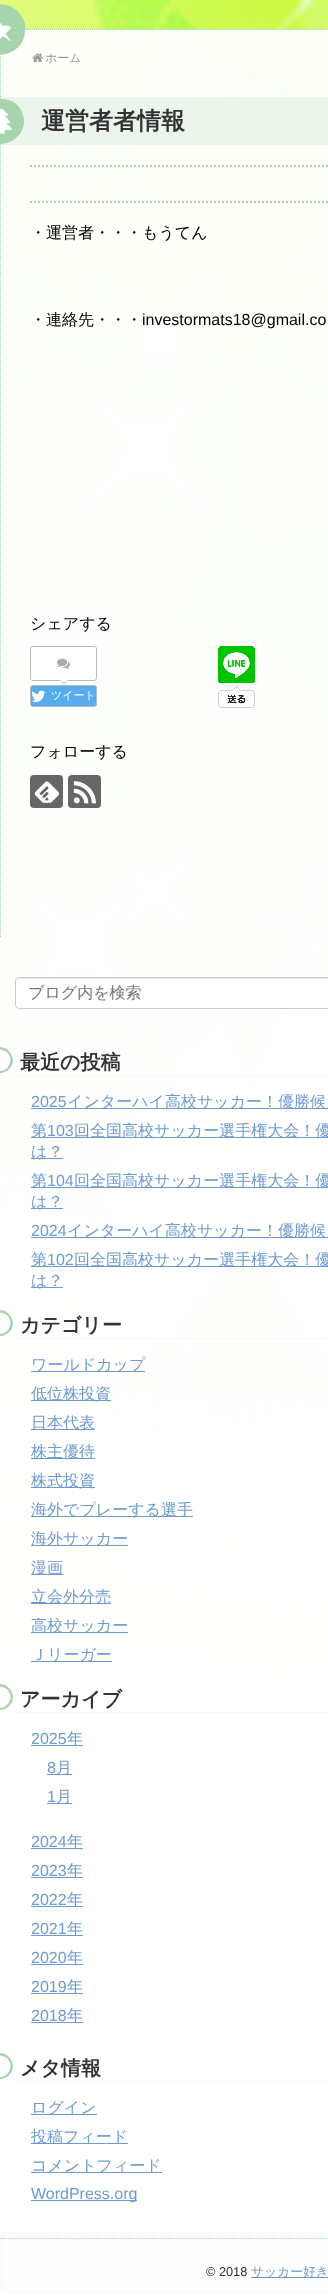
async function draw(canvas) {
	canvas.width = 328;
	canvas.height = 2295;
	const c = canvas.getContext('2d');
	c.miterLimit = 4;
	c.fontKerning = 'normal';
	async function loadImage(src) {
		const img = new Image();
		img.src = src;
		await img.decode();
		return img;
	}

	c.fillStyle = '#fff';
	c.fillRect(0, 0, 328, 2295);
	c.drawImage(await loadImage('img1.png'), 0, 0, 328, 2293);
	c.fillStyle = '#ffffff80';
	c.fillRect(25, 29, 303, 1);
	c.beginPath();
	c.moveTo(0, 29.5);
	c.lineTo(328, 29.5);
	c.strokeStyle = '#a5d4ad';
	c.setLineDash([1, 1]);
	c.stroke();
	c.fillStyle = '#fffffff2';
	c.fillRect(0, 30, 328, 907);
	c.beginPath();
	c.moveTo(0.5, 30);
	c.lineTo(0.5, 937);
	c.stroke();
	c.fillStyle = '#a5d4ad';
	c.beginPath();
	c.moveTo(22, 17);
	c.bezierCurveTo(25, 21, 26, 26, 25, 31);
	c.bezierCurveTo(24, 56, -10, 64, -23, 42);
	c.bezierCurveTo(-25, 38, -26, 33, -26, 28);
	c.bezierCurveTo(-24, 3, 9, -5, 22, 17);
	c.closePath();
	c.fill();
	c.drawImage(await loadImage('img2.png'), 0, 23, 11, 18);
	c.drawImage(await loadImage('img3.png'), 32, 53, 11, 9);
	c.font = '500 12px WenQuanYi Zen Hei';
	c.fillStyle = '#999';
	c.fillText('ホーム', 45, 62);
	c.fillStyle = '#ebf5ec';
	c.fillRect(1, 97, 327, 48);
	c.fillStyle = '#a5d4ad';
	c.beginPath();
	c.moveTo(21, 110);
	c.bezierCurveTo(35, 136, -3, 158, -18, 133);
	c.bezierCurveTo(-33, 107, 6, 85, 21, 110);
	c.closePath();
	c.fill();
	c.drawImage(await loadImage('img4.png'), 0, 108, 12, 26);
	c.font = 'bold 24px WenQuanYi Zen Hei';
	c.fillStyle = '#333';
	c.fillText('運営者者情報', 41, 129);
	c.beginPath();
	c.moveTo(30, 166);
	c.lineTo(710, 166);
	c.lineWidth = 2;
	c.setLineDash([2, 2]);
	c.stroke();
	c.beginPath();
	c.moveTo(30, 202);
	c.lineTo(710, 202);
	c.stroke();
	c.font = '500 16px WenQuanYi Zen Hei';
	c.fillStyle = '#000';
	c.fillText('・運営者・・・もうてん', 30, 238);
	c.fillText('・連絡先・・・', 30, 325);
	c.font = '16px Liberation Sans';
	c.fillText('investormats18@gmail.co', 142, 325);
	c.font = '500 16px WenQuanYi Zen Hei';
	c.fillText('シェアする', 30, 629);
	c.fillStyle = '#fff';
	c.beginPath();
	c.roundRect(30.5, 646.5, 66, 34, 2.5);
	c.fill();
	c.strokeStyle = '#bbb';
	c.lineWidth = 1;
	c.setLineDash([]);
	c.stroke();
	c.drawImage(await loadImage('img5.png'), 57, 658, 13, 11);
	c.fillStyle = '#ddd';
	c.beginPath();
	c.moveTo(59, 680);
	c.lineTo(69, 680);
	c.lineTo(64, 685);
	c.closePath();
	c.fill();
	c.fillStyle = '#fff';
	c.beginPath();
	c.moveTo(61, 680);
	c.lineTo(67, 680);
	c.lineTo(64, 683);
	c.closePath();
	c.fill();
	c.fillStyle = '#55acee';
	c.beginPath();
	c.roundRect(30.5, 685.5, 66, 21, 2.5);
	c.fill();
	c.stroke();
	c.drawImage(await loadImage('img6.png'), 31, 690, 15, 12);
	c.font = '500 11px WenQuanYi Zen Hei';
	c.fillStyle = '#fff';
	c.fillText('ツイート', 51, 699);
	c.drawImage(await loadImage('img7.png'), 218, 646, 37, 62);
	c.font = '500 16px WenQuanYi Zen Hei';
	c.fillStyle = '#000';
	c.fillText('フォローする', 30, 757);
	c.fillStyle = '#666';
	c.beginPath();
	c.roundRect(30, 775, 33, 33, 4);
	c.fill();
	c.drawImage(await loadImage('img8.png'), 34, 781, 25, 22);
	c.beginPath();
	c.roundRect(68, 775, 33, 33, 4);
	c.fill();
	c.drawImage(await loadImage('img9.png'), 73, 781, 23, 23);
	c.fillStyle = '#fffffff2';
	c.fillRect(0, 937, 328, 1301);
	c.fillStyle = '#fff';
	c.beginPath();
	c.roundRect(15, 977, 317, 32, 4);
	c.fill();
	c.fillStyle = '#ececec';
	c.beginPath();
	c.moveTo(19, 979);
	c.lineTo(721, 979);
	c.bezierCurveTo(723, 979, 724, 980, 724, 982);
	c.bezierCurveTo(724, 980, 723, 978, 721, 978);
	c.lineTo(19, 978);
	c.bezierCurveTo(17, 978, 16, 980, 16, 982);
	c.bezierCurveTo(16, 980, 17, 979, 19, 979);
	c.closePath();
	c.fill();
	c.beginPath();
	c.roundRect(15.5, 977.5, 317, 31, 3.5);
	c.strokeStyle = '#ccc';
	c.stroke();
	c.fillStyle = '#757575';
	c.fillText('ブログ内を検索', 28, 998);
	c.beginPath();
	c.moveTo(15, 1075.5);
	c.lineTo(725, 1075.5);
	c.strokeStyle = '#ebf5ec';
	c.setLineDash([1, 1]);
	c.stroke();
	c.fillStyle = '#fff';
	c.beginPath();
	c.moveTo(11, 1056);
	c.bezierCurveTo(19.5, 1070.5, -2.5, 1083.5, -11.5, 1068.5);
	c.bezierCurveTo(-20, 1054, 2.5, 1041, 11, 1056);
	c.closePath();
	c.fill();
	c.fillStyle = '#a5d4ad';
	c.beginPath();
	c.moveTo(4, 1050.5);
	c.bezierCurveTo(-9, 1045, -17.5, 1064.5, -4.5, 1070);
	c.bezierCurveTo(8.5, 1075.5, 17, 1056, 4, 1050.5);
	c.closePath();
	c.moveTo(11, 1054);
	c.bezierCurveTo(19.5, 1068.5, -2.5, 1081.5, -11.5, 1066.5);
	c.bezierCurveTo(-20, 1052, 2.5, 1039, 11, 1054);
	c.closePath();
	c.fill();
	c.font = 'bold 20px WenQuanYi Zen Hei';
	c.fillStyle = '#333';
	c.fillText('最近の投稿', 20, 1069);
	c.font = '16px Liberation Sans';
	c.fillStyle = '#6c9bd2';
	c.fillText('2025', 31, 1107);
	c.fillRect(31, 1108, 297, 1);
	c.font = '500 16px WenQuanYi Zen Hei';
	c.fillText('インターハイ高校サッカー！優勝候', 67, 1107);
	c.fillRect(31, 1137, 297, 1);
	c.fillText('第', 31, 1136);
	c.font = '16px Liberation Sans';
	c.fillText('103', 47, 1136);
	c.font = '500 16px WenQuanYi Zen Hei';
	c.fillText('回全国高校サッカー選手権大会！優', 74, 1136);
	c.fillRect(31, 1158, 32, 1);
	c.fillText('は？', 31, 1157);
	c.fillRect(31, 1187, 297, 1);
	c.fillText('第', 31, 1186);
	c.font = '16px Liberation Sans';
	c.fillText('104', 47, 1186);
	c.font = '500 16px WenQuanYi Zen Hei';
	c.fillText('回全国高校サッカー選手権大会！優', 74, 1186);
	c.fillRect(31, 1208, 32, 1);
	c.fillText('は？', 31, 1207);
	c.font = '16px Liberation Sans';
	c.fillText('2024', 31, 1236);
	c.fillRect(31, 1237, 297, 1);
	c.font = '500 16px WenQuanYi Zen Hei';
	c.fillText('インターハイ高校サッカー！優勝候', 67, 1236);
	c.fillRect(31, 1266, 297, 1);
	c.fillText('第', 31, 1265);
	c.font = '16px Liberation Sans';
	c.fillText('102', 47, 1265);
	c.font = '500 16px WenQuanYi Zen Hei';
	c.fillText('回全国高校サッカー選手権大会！優', 74, 1265);
	c.fillRect(31, 1287, 32, 1);
	c.fillText('は？', 31, 1286);
	c.beginPath();
	c.moveTo(15, 1338.5);
	c.lineTo(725, 1338.5);
	c.stroke();
	c.fillStyle = '#a5d4ad';
	c.beginPath();
	c.moveTo(4, 1313.5);
	c.bezierCurveTo(-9, 1308, -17.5, 1327.5, -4.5, 1333);
	c.bezierCurveTo(8.5, 1338.5, 17, 1319, 4, 1313.5);
	c.closePath();
	c.moveTo(11, 1317);
	c.bezierCurveTo(19.5, 1331.5, -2.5, 1344.5, -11.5, 1329.5);
	c.bezierCurveTo(-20, 1315, 2.5, 1302, 11, 1317);
	c.closePath();
	c.fill();
	c.font = 'bold 20px WenQuanYi Zen Hei';
	c.fillStyle = '#333';
	c.fillText('カテゴリー', 20, 1332);
	c.fillStyle = '#6c9bd2';
	c.fillRect(31, 1371, 114, 1);
	c.font = '500 16px WenQuanYi Zen Hei';
	c.fillText('ワールドカップ', 31, 1370);
	c.fillRect(31, 1400, 80, 1);
	c.fillText('低位株投資', 31, 1399);
	c.fillRect(31, 1429, 64, 1);
	c.fillText('日本代表', 31, 1428);
	c.fillRect(31, 1458, 64, 1);
	c.fillText('株主優待', 31, 1457);
	c.fillRect(31, 1487, 64, 1);
	c.fillText('株式投資', 31, 1486);
	c.fillRect(31, 1516, 162, 1);
	c.fillText('海外でプレーする選手', 31, 1515);
	c.fillRect(31, 1545, 97, 1);
	c.fillText('海外サッカー', 31, 1544);
	c.fillRect(31, 1574, 32, 1);
	c.fillText('漫画', 31, 1573);
	c.fillRect(31, 1603, 80, 1);
	c.fillText('立会外分売', 31, 1602);
	c.fillRect(31, 1632, 97, 1);
	c.fillText('高校サッカー', 31, 1631);
	c.fillRect(31, 1661, 81, 1);
	c.fillText('Ｊリーガー', 31, 1660);
	c.beginPath();
	c.moveTo(15, 1712.5);
	c.lineTo(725, 1712.5);
	c.stroke();
	c.fillStyle = '#a5d4ad';
	c.beginPath();
	c.moveTo(4, 1687.5);
	c.bezierCurveTo(-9, 1682, -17.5, 1701.5, -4.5, 1707);
	c.bezierCurveTo(8.5, 1712.5, 17, 1693, 4, 1687.5);
	c.closePath();
	c.moveTo(11, 1691);
	c.bezierCurveTo(19.5, 1705.5, -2.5, 1718.5, -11.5, 1703.5);
	c.bezierCurveTo(-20, 1689, 2.5, 1676, 11, 1691);
	c.closePath();
	c.fill();
	c.font = 'bold 20px WenQuanYi Zen Hei';
	c.fillStyle = '#333';
	c.fillText('アーカイブ', 20, 1706);
	c.font = '16px Liberation Sans';
	c.fillStyle = '#6c9bd2';
	c.fillText('2025', 31, 1744);
	c.fillRect(31, 1745, 52, 1);
	c.font = '500 16px WenQuanYi Zen Hei';
	c.fillText('年', 67, 1744);
	c.font = '16px Liberation Sans';
	c.fillText('8', 47, 1773);
	c.fillRect(47, 1774, 25, 1);
	c.font = '500 16px WenQuanYi Zen Hei';
	c.fillText('月', 56, 1773);
	c.font = '16px Liberation Sans';
	c.fillText('1', 47, 1802);
	c.fillRect(47, 1803, 25, 1);
	c.font = '500 16px WenQuanYi Zen Hei';
	c.fillText('月', 56, 1802);
	c.font = '16px Liberation Sans';
	c.fillText('2024', 31, 1847);
	c.fillRect(31, 1848, 52, 1);
	c.font = '500 16px WenQuanYi Zen Hei';
	c.fillText('年', 67, 1847);
	c.font = '16px Liberation Sans';
	c.fillText('2023', 31, 1876);
	c.fillRect(31, 1877, 52, 1);
	c.font = '500 16px WenQuanYi Zen Hei';
	c.fillText('年', 67, 1876);
	c.font = '16px Liberation Sans';
	c.fillText('2022', 31, 1905);
	c.fillRect(31, 1906, 52, 1);
	c.font = '500 16px WenQuanYi Zen Hei';
	c.fillText('年', 67, 1905);
	c.font = '16px Liberation Sans';
	c.fillText('2021', 31, 1934);
	c.fillRect(31, 1935, 52, 1);
	c.font = '500 16px WenQuanYi Zen Hei';
	c.fillText('年', 67, 1934);
	c.font = '16px Liberation Sans';
	c.fillText('2020', 31, 1963);
	c.fillRect(31, 1964, 52, 1);
	c.font = '500 16px WenQuanYi Zen Hei';
	c.fillText('年', 67, 1963);
	c.font = '16px Liberation Sans';
	c.fillText('2019', 31, 1992);
	c.fillRect(31, 1993, 52, 1);
	c.font = '500 16px WenQuanYi Zen Hei';
	c.fillText('年', 67, 1992);
	c.font = '16px Liberation Sans';
	c.fillText('2018', 31, 2021);
	c.fillRect(31, 2022, 52, 1);
	c.font = '500 16px WenQuanYi Zen Hei';
	c.fillText('年', 67, 2021);
	c.beginPath();
	c.moveTo(15, 2081.5);
	c.lineTo(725, 2081.5);
	c.stroke();
	c.fillStyle = '#a5d4ad';
	c.beginPath();
	c.moveTo(4, 2056.5);
	c.bezierCurveTo(-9, 2051, -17.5, 2070.5, -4.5, 2076);
	c.bezierCurveTo(8.5, 2081.5, 17, 2062, 4, 2056.5);
	c.closePath();
	c.moveTo(11, 2060);
	c.bezierCurveTo(19.5, 2074.5, -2.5, 2087.5, -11.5, 2072.5);
	c.bezierCurveTo(-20, 2058, 2.5, 2045, 11, 2060);
	c.closePath();
	c.fill();
	c.font = 'bold 20px WenQuanYi Zen Hei';
	c.fillStyle = '#333';
	c.fillText('メタ情報', 20, 2075);
	c.fillStyle = '#6c9bd2';
	c.fillRect(31, 2114, 66, 1);
	c.font = '500 16px WenQuanYi Zen Hei';
	c.fillText('ログイン', 31, 2113);
	c.fillRect(31, 2143, 97, 1);
	c.fillText('投稿フィード', 31, 2142);
	c.fillRect(31, 2172, 131, 1);
	c.fillText('コメントフィード', 31, 2171);
	c.fillRect(31, 2200, 106, 1);
	c.font = '16px Liberation Sans';
	c.fillText('WordPress.org', 31, 2199);
	c.fillStyle = '#ffffff80';
	c.fillRect(4, 2238, 324, 53);
	c.beginPath();
	c.moveTo(0, 2238.5);
	c.lineTo(328, 2238.5);
	c.strokeStyle = '#a5d4ad';
	c.stroke();
	c.font = '12.75px Liberation Sans';
	c.fillStyle = '#333';
	c.fillText('© 2018', 206, 2276);
	c.fillStyle = '#6c9bd2';
	c.fillRect(251, 2277, 77, 1);
	c.font = '500 12.75px WenQuanYi Zen Hei';
	c.fillText('サッカー好き', 251, 2276);
}

draw(document.querySelector('canvas'));
